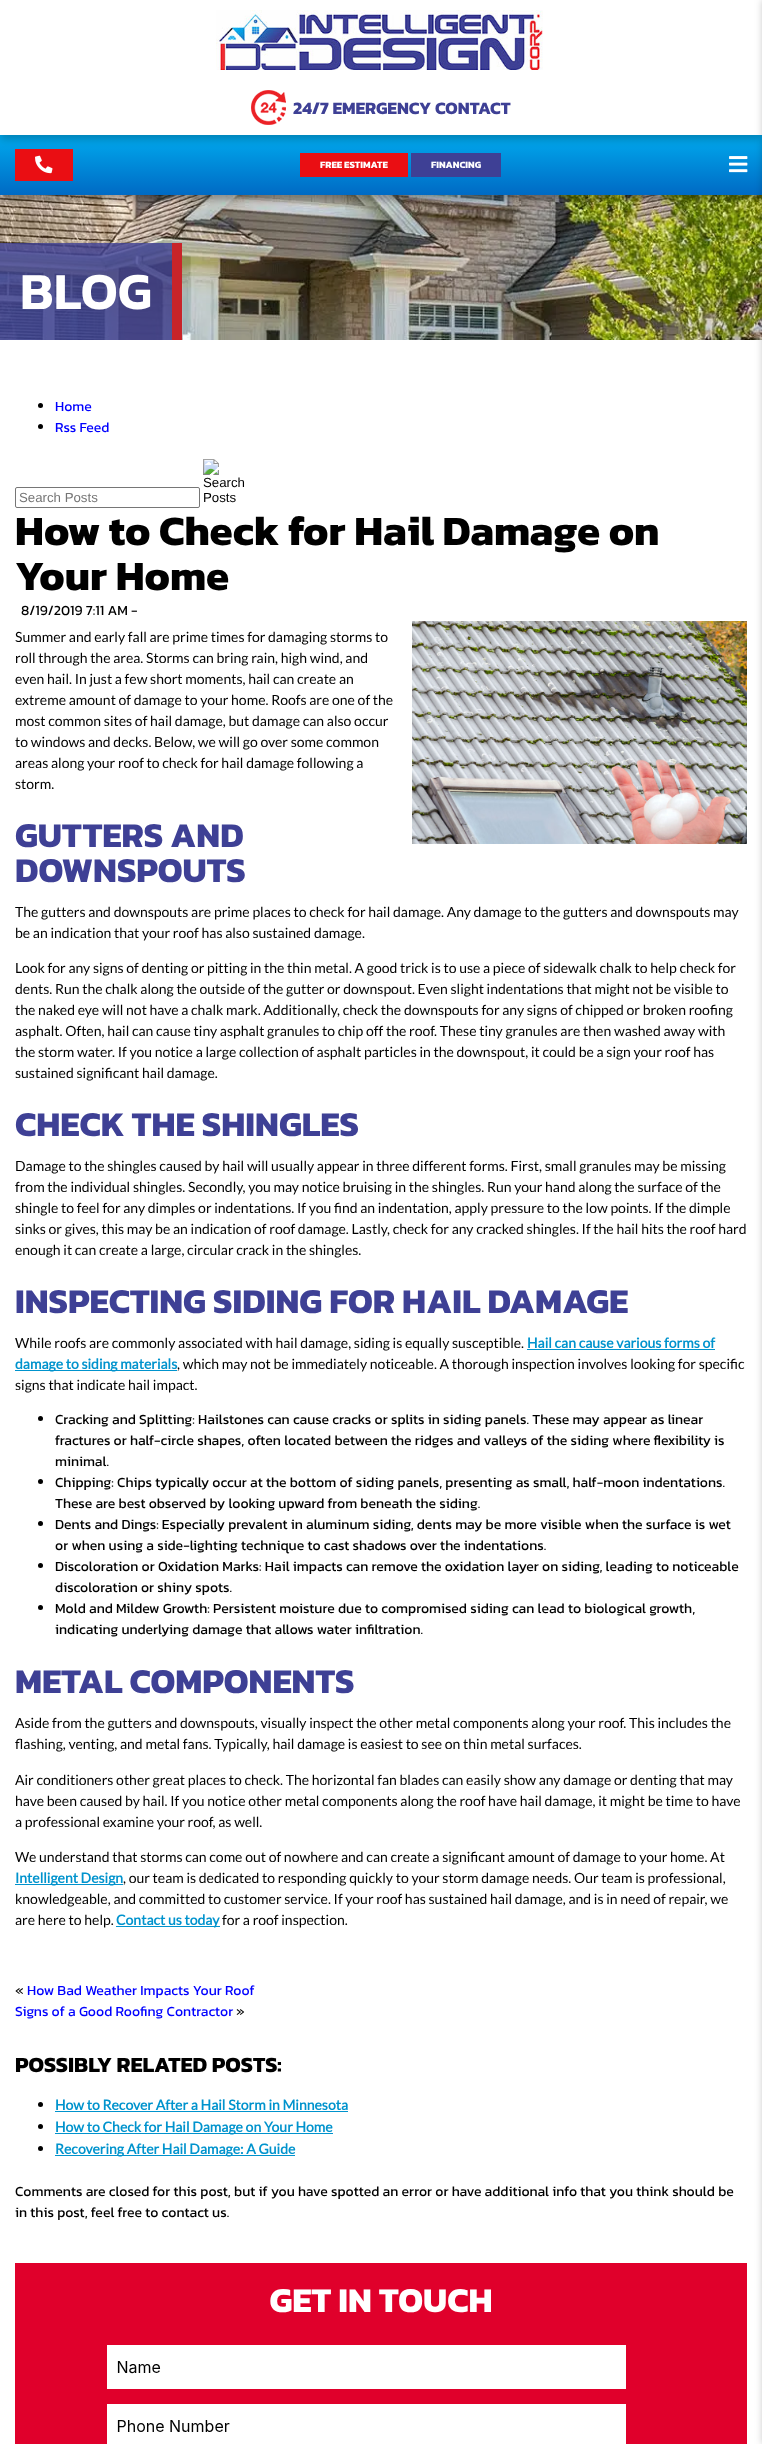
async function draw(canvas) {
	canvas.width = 762;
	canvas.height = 2444;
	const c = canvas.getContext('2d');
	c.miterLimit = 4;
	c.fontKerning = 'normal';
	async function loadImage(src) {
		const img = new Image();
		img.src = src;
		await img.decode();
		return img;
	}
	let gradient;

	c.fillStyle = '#fff';
	c.fillRect(0, 0, 762, 2444);
	c.drawImage(await loadImage('img5.png'), 0, 195, 762, 145);
	c.fillStyle = '#0000004d';
	c.filter = 'blur(3.5px)';
	c.beginPath();
	c.rect(0, 140, 762, 60);
	c.fill();
	c.filter = 'none';
	gradient = c.createLinearGradient(381, 135, 381, 195);
	gradient.addColorStop(0, '#0ae');
	gradient.addColorStop(1, '#006ac4');
	c.fillStyle = gradient;
	c.fillRect(0, 135, 762, 60);
	c.fillStyle = '#ea0e13';
	c.fillRect(15, 149, 58, 32);
	c.fillStyle = '#00000040';
	c.filter = 'blur(4px)';
	c.beginPath();
	c.rect(0, 4, 762, 135);
	c.fill();
	c.filter = 'none';
	c.fillStyle = '#fff';
	c.fillRect(0, 0, 762, 135);
	c.drawImage(await loadImage('img1.png'), 216, 10, 327, 60);
	c.drawImage(await loadImage('img2.png'), 251, 90, 35, 35);
	c.font = 'bold 17.5px Kanit';
	c.fillStyle = '#3e4095';
	c.fillText('24/7 EMERGENCY CONTACT', 293, 114);
	c.drawImage(await loadImage('img3.png'), 35, 155, 18, 19);
	c.fillStyle = '#ea0e13';
	c.fillRect(300, 153, 108, 24);
	c.font = 'bold 9.75px Kanit';
	c.fillStyle = '#fff';
	c.fillText('FREE ESTIMATE', 320, 168);
	c.fillStyle = '#3e4095';
	c.fillRect(411, 153, 90, 24);
	c.fillStyle = '#fff';
	c.fillText('FINANCING', 431, 168);
	c.drawImage(await loadImage('img4.png'), 729, 156, 19, 17);
	c.fillStyle = '#00000033';
	c.filter = 'blur(3.5px)';
	c.beginPath();
	c.rect(762, 0, 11, 2444);
	c.fill();
	c.filter = 'none';
	c.fillStyle = '#3e4095cc';
	c.fillRect(0, 243, 172, 97);
	c.fillStyle = '#c82429';
	c.fillRect(172, 243, 10, 97);
	c.font = '600 52.5px Kanit';
	c.fillStyle = '#fff';
	c.fillText('BLOG', 20, 309);
	c.fillStyle = '#000';
	c.beginPath();
	c.arc(40.5, 405.5, 2.5, 0, 2 * Math.PI);
	c.fill();
	c.font = '14px Kanit';
	c.fillStyle = '#00f';
	c.fillText('Home', 55, 411);
	c.fillStyle = '#000';
	c.beginPath();
	c.arc(40.5, 426.5, 2.5, 0, 2 * Math.PI);
	c.fill();
	c.fillStyle = '#00f';
	c.fillText('Rss Feed', 55, 432);
	c.beginPath();
	c.roundRect(15.5, 487.5, 184, 20, 1.5);
	c.strokeStyle = '#767676';
	c.stroke();
	c.font = '13.25px Liberation Sans';
	c.fillStyle = '#757575';
	c.fillText('Search Posts', 19, 502);
	c.drawImage(await loadImage('img6.png'), 203, 459, 16, 16);
	c.fillStyle = '#000';
	c.fillText('Search', 203, 487);
	c.fillText('Posts', 203, 502);
	c.font = 'bold 42px Kanit';
	c.fillText('How to Check for Hail Damage on', 15, 545);
	c.fillText('Your Home', 15, 590);
	c.font = '14px Kanit';
	c.fillText('8/19/2019 7:11 AM -', 21, 615);
	c.drawImage(await loadImage('img7.png'), 412, 621, 335, 223);
	c.font = '14px Lato';
	for (const [text, x, y] of [
		['Summer and early fall are prime times for damaging storms to', 15, 642],
		['roll through the area. Storms can bring rain, high wind, and', 15, 663],
		['even hail. In just a few short moments, hail can create an', 15, 684],
		['extreme amount of damage to your home. Roofs are one of the', 15, 705],
		['most common sites of hail damage, but damage can also occur', 15, 726],
		['to windows and decks. Below, we will go over some common', 15, 747],
		['areas along your roof to check for hail damage following a', 15, 768],
		['storm.', 15, 789],
	]) {
		c.fillText(text, x, y);
	}
	c.font = 'bold 35px Kanit';
	c.fillStyle = '#3e4095';
	c.fillText('GUTTERS AND', 15, 847);
	c.fillText('DOWNSPOUTS', 15, 882);
	c.font = '14px Lato';
	c.fillStyle = '#000';
	for (const [text, x, y] of [
		['The gutters and downspouts are prime places to check for hail damage. Any damage to the gutters and downspouts may', 15, 917],
		['be an indication that your roof has also sustained damage.', 15, 938],
		['Look for any signs of denting or pitting in the thin metal. A good trick is to use a piece of sidewalk chalk to help check for', 15, 973],
		['dents. Run the chalk along the outside of the gutter or downspout. Even slight indentations that might not be visible to', 15, 994],
		['the naked eye will not have a chalk mark. Additionally, check the downspouts for any signs of chipped or broken roofing', 15, 1015],
		['asphalt. Often, hail can cause tiny asphalt granules to chip off the roof. These tiny granules are then washed away with', 15, 1036],
		['the storm water. If you notice a large collection of asphalt particles in the downspout, it could be a sign your roof has', 15, 1057],
		['sustained significant hail damage.', 15, 1078],
	]) {
		c.fillText(text, x, y);
	}
	c.font = 'bold 35px Kanit';
	c.fillStyle = '#3e4095';
	c.fillText('CHECK THE SHINGLES', 15, 1136);
	c.font = '14px Lato';
	c.fillStyle = '#000';
	for (const [text, x, y] of [
		['Damage to the shingles caused by hail will usually appear in three different forms. First, small granules may be missing', 15, 1171],
		['from the individual shingles. Secondly, you may notice bruising in the shingles. Run your hand along the surface of the', 15, 1192],
		['shingle to feel for any dimples or indentations. If you find an indentation, apply pressure to the low points. If the dimple', 15, 1213],
		['sinks or gives, this may be an indication of roof damage. Lastly, check for any cracked shingles. If the hail hits the roof hard', 15, 1234],
		['enough it can create a large, circular crack in the shingles.', 15, 1255],
	]) {
		c.fillText(text, x, y);
	}
	c.font = 'bold 35px Kanit';
	c.fillStyle = '#3e4095';
	c.fillText('INSPECTING SIDING FOR HAIL DAMAGE', 15, 1313);
	c.font = '14px Lato';
	c.fillStyle = '#000';
	c.fillText('While roofs are commonly associated with hail damage, siding is equally susceptible.', 15, 1348);
	c.font = 'bold 14px Lato';
	c.fillStyle = '#0093cd';
	c.fillText('Hail can cause various forms of', 527, 1348);
	c.fillRect(527, 1349, 188, 1);
	c.fillRect(15, 1370, 162, 1);
	c.fillText('damage to siding materials', 15, 1369);
	c.font = '14px Lato';
	c.fillStyle = '#000';
	c.fillText(', which may not be immediately noticeable. A thorough inspection involves looking for specific', 177, 1369);
	c.fillText('signs that indicate hail impact.', 15, 1390);
	c.beginPath();
	c.arc(40.5, 1418.5, 2.5, 0, 2 * Math.PI);
	c.fill();
	c.font = '14px Kanit';
	for (const [text, x, y] of [
		['Cracking and Splitting: Hailstones can cause cracks or splits in siding panels. These may appear as linear', 55, 1424],
		['fractures or half-circle shapes, often located between the ridges and valleys of the siding where flexibility is', 55, 1445],
		['minimal.', 55, 1466],
	]) {
		c.fillText(text, x, y);
	}
	c.beginPath();
	c.arc(40.5, 1481.5, 2.5, 0, 2 * Math.PI);
	c.fill();
	c.fillText('Chipping: Chips typically occur at the bottom of siding panels, presenting as small, half-moon indentations.', 55, 1487);
	c.fillText('These are best observed by looking upward from beneath the siding.', 55, 1508);
	c.beginPath();
	c.arc(40.5, 1523.5, 2.5, 0, 2 * Math.PI);
	c.fill();
	c.fillText('Dents and Dings: Especially prevalent in aluminum siding, dents may be more visible when the surface is wet', 55, 1529);
	c.fillText('or when using a side-lighting technique to cast shadows over the indentations.', 55, 1550);
	c.beginPath();
	c.arc(40.5, 1565.5, 2.5, 0, 2 * Math.PI);
	c.fill();
	c.fillText('Discoloration or Oxidation Marks: Hail impacts can remove the oxidation layer on siding, leading to noticeable', 55, 1571);
	c.fillText('discoloration or shiny spots.', 55, 1592);
	c.beginPath();
	c.arc(40.5, 1607.5, 2.5, 0, 2 * Math.PI);
	c.fill();
	c.fillText('Mold and Mildew Growth: Persistent moisture due to compromised siding can lead to biological growth,', 55, 1613);
	c.fillText('indicating underlying damage that allows water infiltration.', 55, 1634);
	c.font = 'bold 35px Kanit';
	c.fillStyle = '#3e4095';
	c.fillText('METAL COMPONENTS', 15, 1693);
	c.font = '14px Lato';
	c.fillStyle = '#000';
	for (const [text, x, y] of [
		['Aside from the gutters and downspouts, visually inspect the other metal components along your roof. This includes the', 15, 1728],
		['flashing, venting, and metal fans. Typically, hail damage is easiest to see on thin metal surfaces.', 15, 1749],
		['Air conditioners other great places to check. The horizontal fan blades can easily show any damage or denting that may', 15, 1785],
		['have been caused by hail. If you notice other metal components along the roof have hail damage, it might be time to have', 15, 1806],
		['a professional examine your roof, as well.', 15, 1827],
		['We understand that storms can come out of nowhere and can create a significant amount of damage to your home. At', 15, 1862],
	]) {
		c.fillText(text, x, y);
	}
	c.fillStyle = '#0093cd';
	c.fillRect(15, 1884, 108, 1);
	c.font = 'bold 14px Lato';
	c.fillText('Intelligent Design', 15, 1883);
	c.font = '14px Lato';
	c.fillStyle = '#000';
	for (const [text, x, y] of [
		[', our team is dedicated to responding quickly to your storm damage needs. Our team is professional,', 123, 1883],
		['knowledgeable, and committed to customer service. If your roof has sustained hail damage, and is in need of repair, we', 15, 1904],
		['are here to help.', 15, 1925],
	]) {
		c.fillText(text, x, y);
	}
	c.fillStyle = '#0093cd';
	c.fillRect(116, 1926, 104, 1);
	c.font = 'bold 14px Lato';
	c.fillText('Contact us today', 116, 1925);
	c.font = '14px Lato';
	c.fillStyle = '#000';
	c.fillText('for a roof inspection.', 222, 1925);
	c.font = '14px Kanit';
	c.fillText('«', 15, 1995);
	c.fillStyle = '#00f';
	c.fillText('How Bad Weather Impacts Your Roof', 27, 1995);
	c.fillText('Signs of a Good Roofing Contractor', 15, 2016);
	c.fillStyle = '#000';
	c.fillText('»', 236, 2016);
	c.font = 'bold 21.9px Kanit';
	c.fillText('POSSIBLY RELATED POSTS:', 15, 2072);
	c.beginPath();
	c.arc(40.5, 2104.5, 2.5, 0, 2 * Math.PI);
	c.fill();
	c.font = 'bold 14px Lato';
	c.fillStyle = '#0093cd';
	c.fillText('How to Recover After a Hail Storm in Minnesota', 55, 2110);
	c.fillRect(55, 2111, 293, 1);
	c.fillStyle = '#000';
	c.beginPath();
	c.arc(40.5, 2126.5, 2.5, 0, 2 * Math.PI);
	c.fill();
	c.fillStyle = '#0093cd';
	c.fillRect(55, 2133, 278, 1);
	c.fillText('How to Check for Hail Damage on Your Home', 55, 2132);
	c.fillStyle = '#000';
	c.beginPath();
	c.arc(40.5, 2148.5, 2.5, 0, 2 * Math.PI);
	c.fill();
	c.fillStyle = '#0093cd';
	c.fillRect(55, 2155, 240, 1);
	c.fillText('Recovering After Hail Damage: A Guide', 55, 2154);
	c.font = '14px Kanit';
	c.fillStyle = '#000';
	c.fillText('Comments are closed for this post, but if you have spotted an error or have additional info that you think should be', 15, 2196);
	c.fillText('in this post, feel free to contact us.', 15, 2217);
	c.drawImage(await loadImage('img8.png'), 15, 2263, 732, 181);
}

draw(document.querySelector('canvas'));
